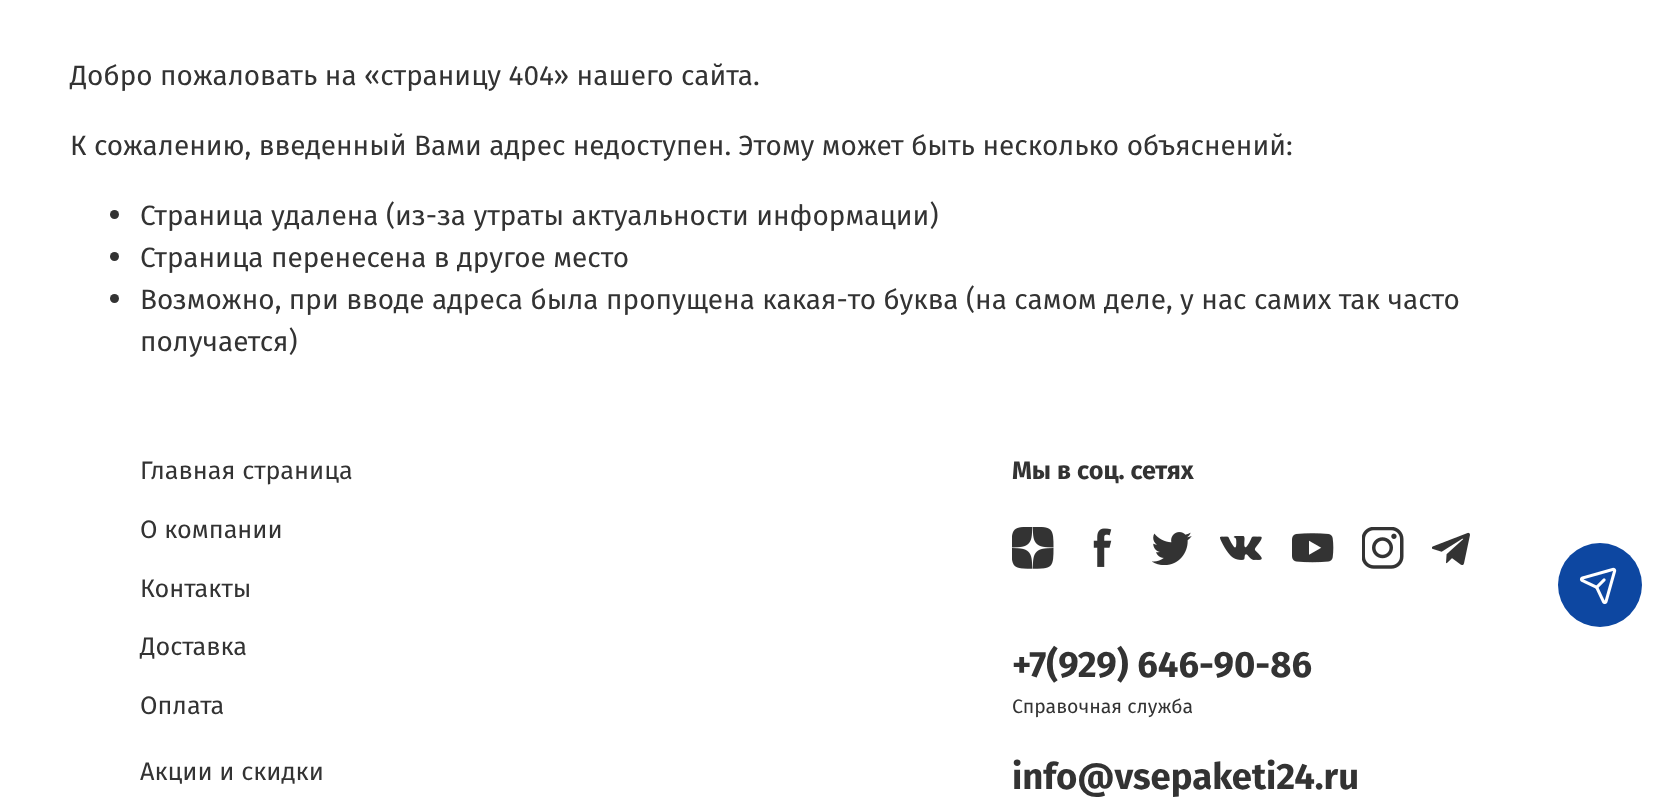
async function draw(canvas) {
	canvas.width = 1675;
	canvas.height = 800;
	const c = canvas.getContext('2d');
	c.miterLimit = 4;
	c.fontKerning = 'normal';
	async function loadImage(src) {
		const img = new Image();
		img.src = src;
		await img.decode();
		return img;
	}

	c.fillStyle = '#fff';
	c.fillRect(0, 0, 1675, 800);
	c.font = '28px Fira Sans';
	c.fillStyle = '#333';
	c.fillText('Добро пожаловать на «страницу 404» нашего сайта.', 70, 85);
	c.fillText('К сожалению, введенный Вами адрес недоступен. Этому может быть несколько объяснений:', 70, 155);
	c.beginPath();
	c.arc(114.5, 214.5, 4.5, 0, 2 * Math.PI);
	c.fill();
	c.fillText('Страница удалена (из-за утраты актуальности информации)', 140, 225);
	c.beginPath();
	c.arc(114.5, 256.5, 4.5, 0, 2 * Math.PI);
	c.fill();
	c.fillText('Страница перенесена в другое место', 140, 267);
	c.beginPath();
	c.arc(114.5, 298.5, 4.5, 0, 2 * Math.PI);
	c.fill();
	c.fillText('Возможно, при вводе адреса была пропущена какая-то буква (на самом деле, у нас самих так часто', 140, 309);
	c.fillText('получается)', 140, 351);
	c.font = '25.25px Fira Sans';
	for (const [text, x, y] of [
		['Главная страница', 140, 479],
		['О компании', 140, 538],
		['Контакты', 140, 597],
		['Доставка', 140, 655],
		['Оплата', 140, 714],
		['Акции и скидки', 140, 780],
	]) {
		c.fillText(text, x, y);
	}
	c.font = 'bold 25.25px Fira Sans';
	c.fillText('Мы в соц. сетях', 1012, 479);
	c.drawImage(await loadImage('img1.png'), 1012, 527, 42, 42);
	c.drawImage(await loadImage('img2.png'), 1093, 528, 19, 39);
	c.drawImage(await loadImage('img3.png'), 1152, 532, 40, 33);
	c.drawImage(await loadImage('img4.png'), 1220, 536, 42, 24);
	c.drawImage(await loadImage('img5.png'), 1292, 533, 42, 30);
	c.drawImage(await loadImage('img6.png'), 1362, 527, 42, 42);
	c.drawImage(await loadImage('img7.png'), 1432, 532, 38, 33);
	c.font = 'bold 36.5px Fira Sans';
	c.fillText('+7(929) 646-90-86', 1012, 677);
	c.font = '19.5px Fira Sans';
	c.fillText('Справочная служба', 1012, 713);
	c.font = 'bold 36.5px Fira Sans';
	c.fillText('info@vsepaketi24.ru', 1012, 789);
	c.fillStyle = '#0d47a1';
	c.beginPath();
	c.arc(1600, 585, 42, 0, 2 * Math.PI);
	c.fill();
	c.drawImage(await loadImage('img8.png'), 1579, 567, 38, 38);
}

draw(document.querySelector('canvas'));
